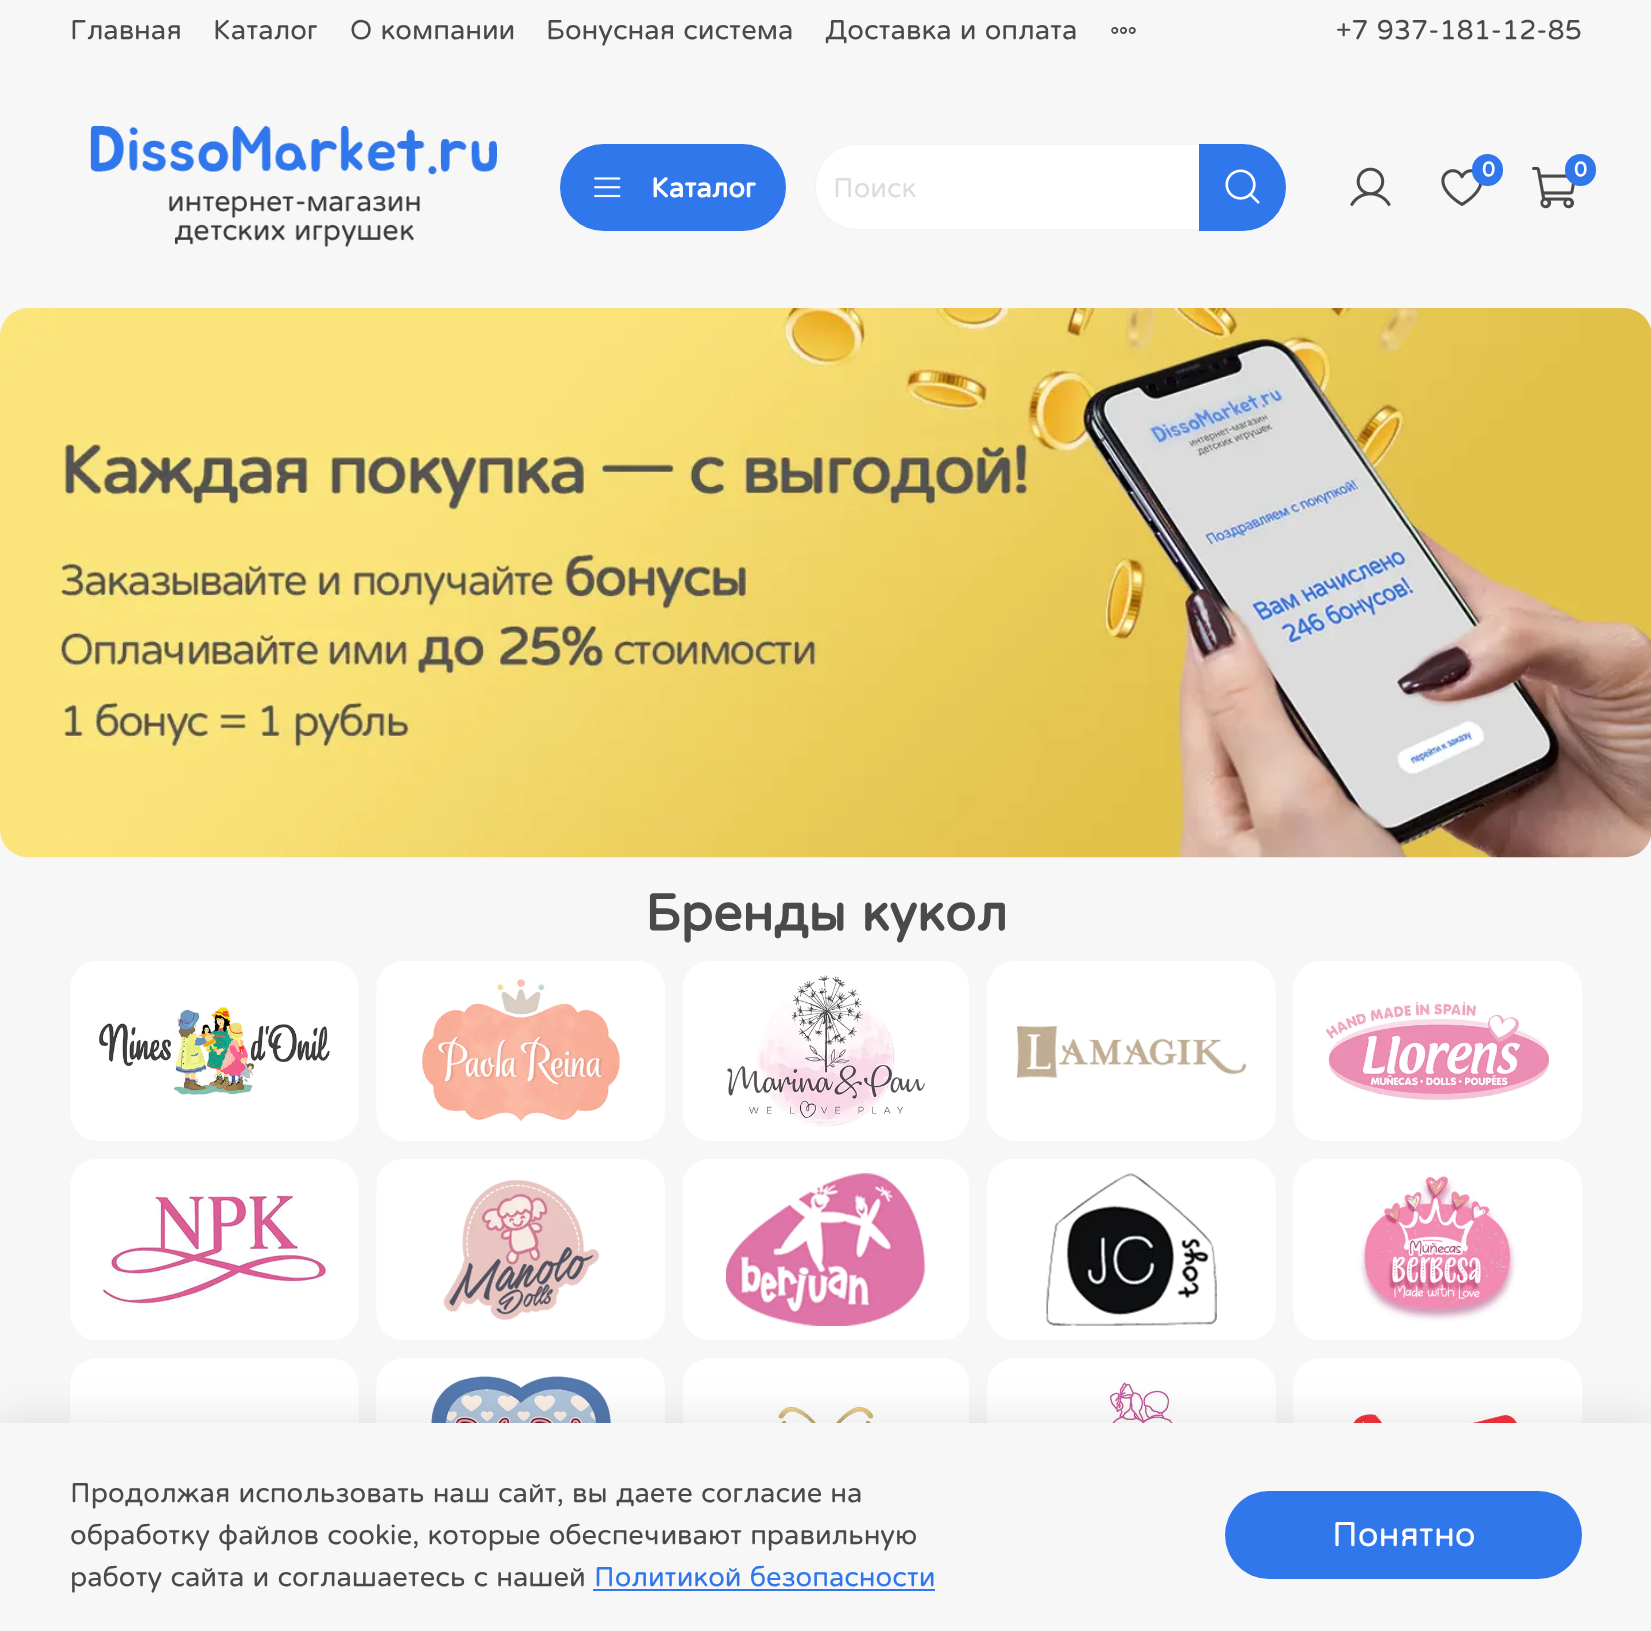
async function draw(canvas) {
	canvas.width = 1651;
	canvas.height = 1631;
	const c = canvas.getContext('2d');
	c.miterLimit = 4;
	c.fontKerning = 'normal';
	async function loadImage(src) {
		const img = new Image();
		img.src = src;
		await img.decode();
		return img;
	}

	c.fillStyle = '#f7f7f7';
	c.fillRect(0, 0, 1651, 1631);
	c.font = '28px Huninn';
	c.fillStyle = '#4a4a4a';
	for (const [text, x, y] of [
		['Главная', 70, 40],
		['Каталог', 213, 40],
		['О компании', 350, 40],
		['Бонусная система', 546, 40],
		['Доставка и оплата', 825, 40],
	]) {
		c.fillText(text, x, y);
	}
	c.drawImage(await loadImage('img1.png'), 1111, 27, 25, 7);
	c.fillText('+7 937-181-12-85', 1336, 40);
	c.drawImage(await loadImage('img2.png'), 90, 126, 407, 121);
	c.drawImage(await loadImage('img3.png'), 1350, 167, 41, 39);
	c.drawImage(await loadImage('img4.png'), 1441, 169, 41, 37);
	c.fillStyle = '#3177ec';
	c.beginPath();
	c.roundRect(1472, 154, 31, 32, 15.5);
	c.fill();
	c.font = 'bold 21px Huninn';
	c.fillStyle = '#fff';
	c.fillText('0', 1482, 177);
	c.drawImage(await loadImage('img5.png'), 1532, 166, 43, 43);
	c.fillStyle = '#3177ec';
	c.beginPath();
	c.roundRect(1565, 154, 31, 32, 15.5);
	c.fill();
	c.fillStyle = '#fff';
	c.fillText('0', 1574, 177);
	c.fillStyle = '#3177ec';
	c.beginPath();
	c.roundRect(560, 144, 226, 87, 43.5);
	c.fill();
	c.drawImage(await loadImage('img6.png'), 594, 177, 27, 21);
	c.font = 'bold 28px Huninn';
	c.fillStyle = '#fff';
	c.fillText('Каталог', 651, 198);
	c.beginPath();
	c.roundRect(814, 144, 385, 87, [43.5, 0, 0, 43.5]);
	c.fill();
	c.fillStyle = '#f4f4f4';
	c.beginPath();
	c.moveTo(858, 144);
	c.lineTo(1199, 144);
	c.lineTo(1199, 231);
	c.lineTo(858, 231);
	c.bezierCurveTo(833, 231, 814, 211, 814, 187);
	c.bezierCurveTo(814, 163, 833, 144, 858, 144);
	c.closePath();
	c.moveTo(858, 145);
	c.lineTo(1199, 145);
	c.lineTo(1199, 229);
	c.lineTo(858, 229);
	c.bezierCurveTo(834, 229, 816, 210, 816, 187);
	c.bezierCurveTo(816, 164, 834, 145, 858, 145);
	c.closePath();
	c.fill('evenodd');
	c.font = '28px Huninn';
	c.fillStyle = '#ddd';
	c.fillText('Поиск', 833, 198);
	c.fillStyle = '#3177ec';
	c.beginPath();
	c.roundRect(1199, 144, 87, 87, [0, 43.5, 43.5, 0]);
	c.fill();
	c.drawImage(await loadImage('img7.png'), 1225, 169, 35, 35);
	c.drawImage(await loadImage('img8.png'), 0, 308, 1651, 550);
	c.font = 'bold 52.5px Huninn';
	c.fillStyle = '#4a4a4a';
	c.fillText('Бренды кукол', 645, 932);
	c.drawImage(await loadImage('img9.png'), 70, 961, 289, 180);
	c.drawImage(await loadImage('img10.png'), 376, 961, 289, 180);
	c.drawImage(await loadImage('img11.png'), 683, 961, 286, 180);
	c.drawImage(await loadImage('img12.png'), 987, 961, 289, 180);
	c.drawImage(await loadImage('img13.png'), 1293, 961, 289, 180);
	c.drawImage(await loadImage('img14.png'), 70, 1159, 289, 181);
	c.drawImage(await loadImage('img15.png'), 376, 1159, 289, 181);
	c.drawImage(await loadImage('img16.png'), 683, 1159, 286, 181);
	c.drawImage(await loadImage('img17.png'), 987, 1159, 289, 181);
	c.drawImage(await loadImage('img18.png'), 1293, 1159, 289, 181);
	c.drawImage(await loadImage('img19.png'), 70, 1358, 289, 65);
	c.drawImage(await loadImage('img20.png'), 376, 1358, 289, 65);
	c.drawImage(await loadImage('img21.png'), 683, 1358, 286, 65);
	c.drawImage(await loadImage('img22.png'), 987, 1358, 289, 65);
	c.drawImage(await loadImage('img23.png'), 1293, 1358, 289, 65);
	c.fillStyle = '#00000017';
	c.filter = 'blur(20px)';
	c.beginPath();
	c.rect(-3, 1418, 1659, 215);
	c.fill();
	c.filter = 'none';
	c.fillStyle = '#f7f7f7';
	c.fillRect(0, 1423, 1651, 208);
	c.font = '28px Huninn';
	c.fillStyle = '#4a4a4a';
	for (const [text, x, y] of [
		['Продолжая использовать наш сайт, вы даете согласие на', 70, 1503],
		['обработку файлов cookie, которые обеспечивают правильную', 70, 1545],
		['работу сайта и соглашаетесь с нашей', 70, 1587],
	]) {
		c.fillText(text, x, y);
	}
	c.fillStyle = '#3177ec';
	c.fillText('Политикой безопасности', 594, 1587);
	c.fillRect(593, 1589, 342, 2);
	c.beginPath();
	c.roundRect(1225, 1491, 357, 88, 44);
	c.fill();
	c.font = '35px Huninn';
	c.fillStyle = '#fff';
	c.fillText('Понятно', 1332, 1547);
}

draw(document.querySelector('canvas'));
